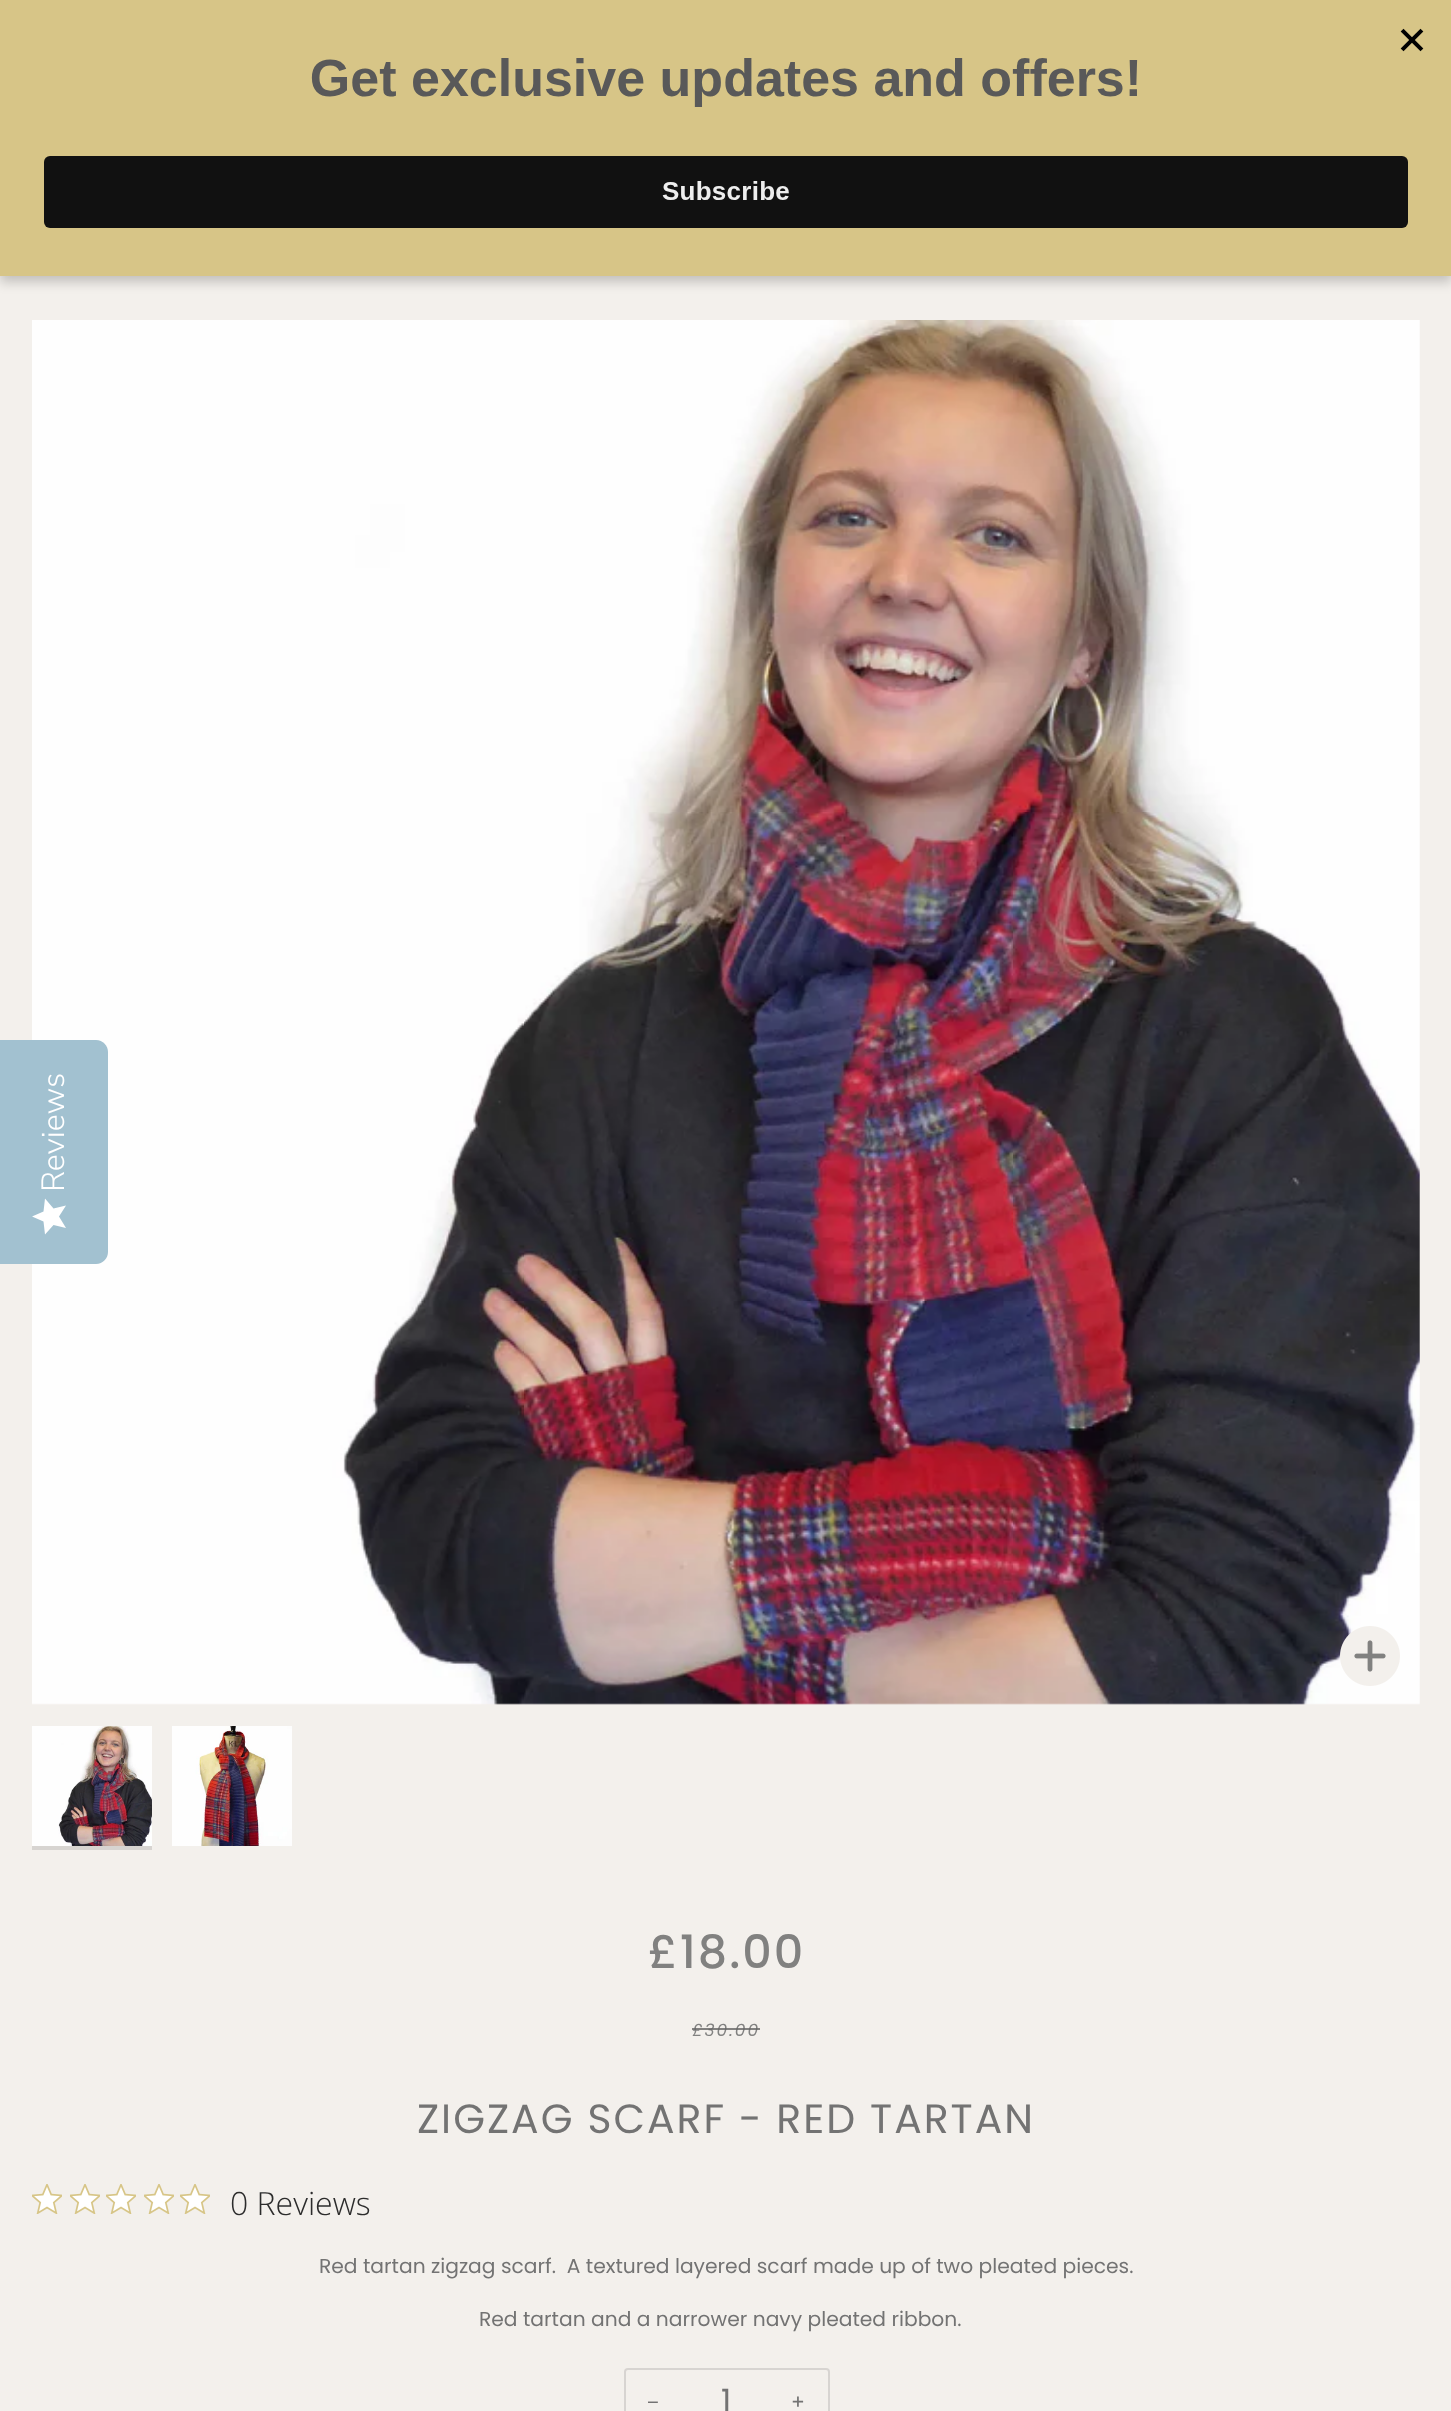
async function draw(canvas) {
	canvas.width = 1451;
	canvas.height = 2411;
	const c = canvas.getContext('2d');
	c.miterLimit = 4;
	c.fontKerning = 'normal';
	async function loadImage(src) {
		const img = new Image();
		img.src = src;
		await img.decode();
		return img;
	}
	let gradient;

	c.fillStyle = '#f3f0ec';
	c.fillRect(0, 0, 1451, 2411);
	c.fillStyle = '#00000033';
	c.filter = 'blur(6px)';
	c.beginPath();
	c.rect(0, 6, 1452, 276);
	c.fill();
	c.filter = 'none';
	c.drawImage(await loadImage('img1.png'), 0, 0, 1451, 276);
	c.drawImage(await loadImage('img2.png'), 32, 320, 1388, 1385);
	c.fillStyle = '#a2c1d0';
	c.beginPath();
	c.moveTo(0, 1264);
	c.lineTo(0, 1040);
	c.lineTo(96, 1040);
	c.bezierCurveTo(103, 1040, 108, 1046, 108, 1052);
	c.lineTo(108, 1252);
	c.bezierCurveTo(108, 1258, 103, 1264, 96, 1264);
	c.closePath();
	c.fill();
	c.font = '300 32px Nunito Sans';
	c.fillStyle = '#fff';
	c.save();
	c.translate(64, 1192);
	c.rotate(-90 * Math.PI / 180);
	c.fillText('Reviews', 0, 0);
	c.restore();
	gradient = c.createLinearGradient(32, 1235, 32, 1199);
	gradient.addColorStop(1, '#fff');
	gradient.addColorStop(1, '#eaeaea');
	c.fillStyle = gradient;
	c.beginPath();
	c.moveTo(59, 1216.5);
	c.lineTo(66, 1205.5);
	c.lineTo(53.5, 1208.5);
	c.lineTo(45, 1198.5);
	c.lineTo(43.5, 1211.5);
	c.lineTo(32, 1216.5);
	c.lineTo(43.5, 1221.5);
	c.lineTo(45, 1234.5);
	c.lineTo(53.5, 1225);
	c.lineTo(66, 1228);
	c.closePath();
	c.fill();
	c.drawImage(await loadImage('img3.png'), 1340, 1626, 60, 60);
	c.drawImage(await loadImage('img4.png'), 32, 1726, 120, 120);
	c.fillStyle = '#d7d4d1';
	c.fillRect(32, 1846, 120, 4);
	c.drawImage(await loadImage('img5.png'), 172, 1726, 120, 120);
	c.letterSpacing = '2px';
	c.font = '500 46px Poppins';
	c.fillStyle = '#818180';
	c.fillText('£18.00', 648, 1968);
	c.font = 'italic 17px Poppins';
	c.fillText('£30.00', 692, 2036);
	c.fillStyle = '#656565cc';
	c.fillRect(692, 2028, 68, 2);
	c.font = '40.9px Poppins';
	c.fillStyle = '#737373';
	c.fillText('ZIGZAG SCARF - RED TARTAN', 417, 2133);
	c.drawImage(await loadImage('img6.png'), 32, 2184, 30, 30);
	c.drawImage(await loadImage('img6.png'), 70, 2184, 30, 30);
	c.drawImage(await loadImage('img6.png'), 106, 2184, 30, 30);
	c.drawImage(await loadImage('img6.png'), 144, 2184, 30, 30);
	c.drawImage(await loadImage('img6.png'), 180, 2184, 30, 30);
	c.letterSpacing = '0px';
	c.font = '300 32px Open Sans';
	c.fillStyle = '#2c2c2c';
	c.fillText('0 Reviews', 230, 2215);
	c.font = '20.25px Poppins';
	c.fillStyle = '#737373';
	c.fillText('Red tartan zigzag scarf.  A textured layered scarf made up of two pleated pieces.', 319, 2273);
	c.fillText('Red tartan and a narrower navy pleated ribbon.', 479, 2326);
	c.beginPath();
	c.roundRect(625, 2369, 204, 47, 3);
	c.strokeStyle = '#d7d4d1';
	c.lineWidth = 2;
	c.stroke();
	c.font = '20.25px Liberation Sans';
	c.fillText('−', 647, 2409);
	c.font = '32px Poppins';
	c.fillText('1', 721, 2412);
	c.font = '20.25px Poppins';
	c.fillText('+', 791, 2409);
}

draw(document.querySelector('canvas'));
